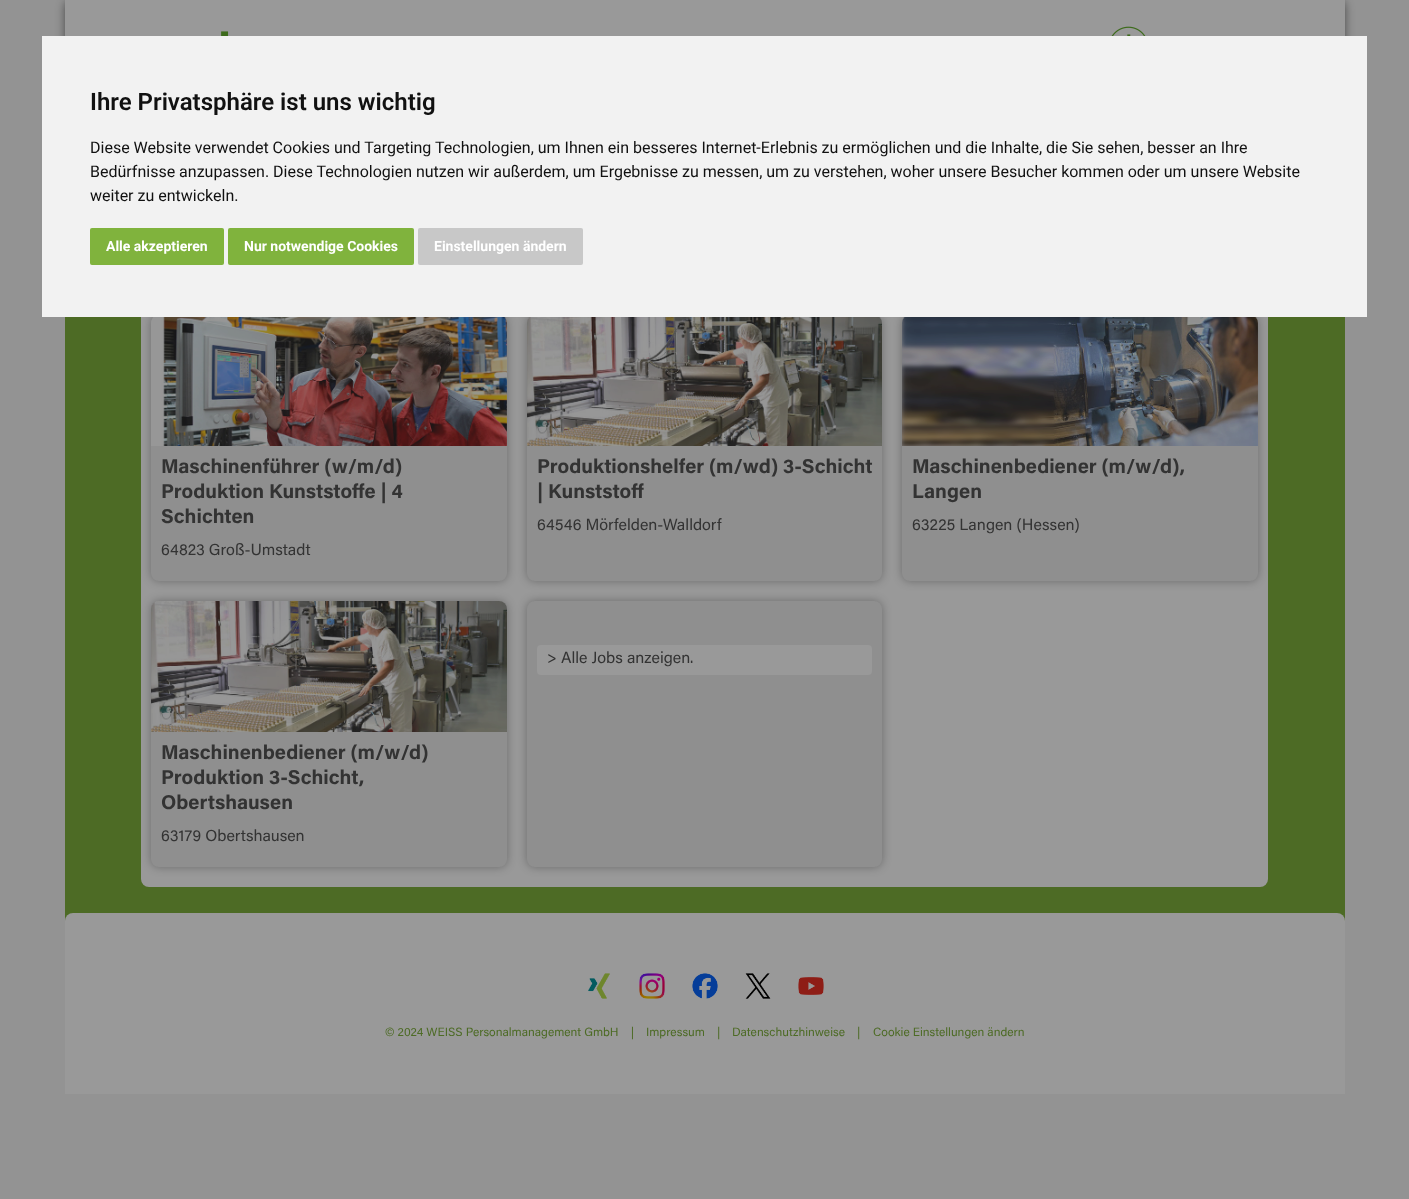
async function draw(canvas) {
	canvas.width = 1409;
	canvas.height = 1199;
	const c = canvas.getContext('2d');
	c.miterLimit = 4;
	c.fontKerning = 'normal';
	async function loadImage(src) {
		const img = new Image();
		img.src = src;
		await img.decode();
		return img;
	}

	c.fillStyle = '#939393';
	c.fillRect(0, 0, 1409, 1199);
	c.fillStyle = '#00000080';
	c.filter = 'blur(5px)';
	c.beginPath();
	c.roundRect(65, 0, 1280, 125, 8);
	c.fill();
	c.filter = 'none';
	c.fillStyle = '#4d6b25';
	c.fillRect(65, 317, 1280, 604);
	c.fillStyle = '#999';
	c.beginPath();
	c.roundRect(141, 173, 1127, 714, 8);
	c.fill();
	c.fillStyle = '#0000004d';
	c.filter = 'blur(5px)';
	c.beginPath();
	c.roundRect(151, 315, 356, 266, 8);
	c.fill();
	c.filter = 'none';
	c.fillStyle = '#8f8f8f';
	c.beginPath();
	c.roundRect(151, 315, 356, 266, 8);
	c.fill();
	c.fillStyle = '#0000004d';
	c.filter = 'blur(5px)';
	c.beginPath();
	c.roundRect(527, 315, 355, 266, 8);
	c.fill();
	c.filter = 'none';
	c.fillStyle = '#8f8f8f';
	c.beginPath();
	c.roundRect(527, 315, 355, 266, 8);
	c.fill();
	c.fillStyle = '#0000004d';
	c.filter = 'blur(5px)';
	c.beginPath();
	c.roundRect(902, 315, 356, 266, 8);
	c.fill();
	c.filter = 'none';
	c.fillStyle = '#8f8f8f';
	c.beginPath();
	c.roundRect(902, 315, 356, 266, 8);
	c.fill();
	c.fillStyle = '#f2f2f2';
	c.fillRect(42, 36, 1325, 281);
	c.font = '600 24px Roboto';
	c.fillStyle = '#111';
	c.fillText('Ihre Privatsphäre ist uns wichtig', 90, 110);
	c.font = '16px Roboto';
	for (const [text, x, y] of [
		['Diese Website verwendet Cookies und Targeting Technologien, um Ihnen ein besseres Internet-Erlebnis zu ermöglichen und die Inhalte, die Sie sehen, besser an Ihre', 90, 153],
		['Bedürfnisse anzupassen. Diese Technologien nutzen wir außerdem, um Ergebnisse zu messen, um zu verstehen, woher unsere Besucher kommen oder um unsere Website', 90, 177],
		['weiter zu entwickeln.', 90, 201],
	]) {
		c.fillText(text, x, y);
	}
	c.fillStyle = '#80b33d';
	c.beginPath();
	c.roundRect(90, 228, 134, 37, 2);
	c.fill();
	c.font = 'bold 14px Roboto';
	c.fillStyle = '#fff';
	c.fillText('Alle akzeptieren', 106, 251);
	c.fillStyle = '#80b33d';
	c.beginPath();
	c.roundRect(228, 228, 186, 37, 2);
	c.fill();
	c.fillStyle = '#fff';
	c.fillText('Nur notwendige Cookies', 244, 251);
	c.fillStyle = '#c8c8c8';
	c.beginPath();
	c.roundRect(418, 228, 165, 37, 2);
	c.fill();
	c.fillStyle = '#fff';
	c.fillText('Einstellungen ändern', 434, 251);
	c.fillStyle = '#999';
	c.fillRect(65, 0, 1280, 36);
	c.drawImage(await loadImage('img1.png'), 221, 31, 8, 5);
	c.drawImage(await loadImage('img2.png'), 1111, 26, 35, 10);
	c.drawImage(await loadImage('img3.png'), 151, 317, 356, 129);
	c.font = 'bold 20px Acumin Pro';
	c.fillStyle = '#333';
	for (const [text, x, y] of [
		['Maschinenführer (w/m/d)', 161, 473],
		['Produktion Kunststoffe | 4', 161, 498],
		['Schichten', 161, 523],
	]) {
		c.fillText(text, x, y);
	}
	c.font = '16px Acumin Pro';
	c.fillText('64823 Groß-Umstadt', 161, 555);
	c.drawImage(await loadImage('img4.png'), 527, 317, 355, 129);
	c.font = 'bold 20px Acumin Pro';
	c.fillText('Produktionshelfer (m/wd) 3-Schicht', 537, 473);
	c.fillText('| Kunststoff', 537, 498);
	c.font = '16px Acumin Pro';
	c.fillText('64546 Mörfelden-Walldorf', 537, 530);
	c.drawImage(await loadImage('img5.png'), 902, 317, 356, 129);
	c.font = 'bold 20px Acumin Pro';
	c.fillText('Maschinenbediener (m/w/d),', 912, 473);
	c.fillText('Langen', 912, 498);
	c.font = '16px Acumin Pro';
	c.fillText('63225 Langen (Hessen)', 912, 530);
	c.fillStyle = '#0000004d';
	c.filter = 'blur(5px)';
	c.beginPath();
	c.roundRect(527, 601, 355, 266, 8);
	c.fill();
	c.filter = 'none';
	c.fillStyle = '#8f8f8f';
	c.beginPath();
	c.roundRect(527, 601, 355, 266, 8);
	c.fill();
	c.fillStyle = '#999';
	c.beginPath();
	c.roundRect(537, 645, 335, 30, 4);
	c.fill();
	c.fillStyle = '#333';
	c.fillText('> Alle Jobs anzeigen.', 547, 663);
	c.fillStyle = '#0000004d';
	c.filter = 'blur(5px)';
	c.beginPath();
	c.roundRect(151, 601, 356, 266, 8);
	c.fill();
	c.filter = 'none';
	c.fillStyle = '#8f8f8f';
	c.beginPath();
	c.roundRect(151, 601, 356, 266, 8);
	c.fill();
	c.drawImage(await loadImage('img6.png'), 151, 601, 356, 131);
	c.font = 'bold 20px Acumin Pro';
	c.fillStyle = '#333';
	for (const [text, x, y] of [
		['Maschinenbediener (m/w/d)', 161, 759],
		['Produktion 3-Schicht,', 161, 784],
		['Obertshausen', 161, 809],
	]) {
		c.fillText(text, x, y);
	}
	c.font = '16px Acumin Pro';
	c.fillText('63179 Obertshausen', 161, 841);
	c.fillStyle = '#999';
	c.beginPath();
	c.roundRect(65, 913, 1280, 181, [8, 8, 0, 0]);
	c.fill();
	c.drawImage(await loadImage('img7.png'), 588, 973, 22, 26);
	c.drawImage(await loadImage('img8.png'), 639, 973, 26, 26);
	c.drawImage(await loadImage('img9.png'), 692, 973, 26, 26);
	c.drawImage(await loadImage('img10.png'), 745, 973, 26, 26);
	c.drawImage(await loadImage('img11.png'), 798, 977, 26, 18);
	c.font = '12px Acumin Pro';
	c.fillStyle = '#4d6b25';
	for (const [text, x, y] of [
		['© 2024 WEISS Personalmanagement GmbH    |', 385, 1036],
		['Impressum', 646, 1036],
		['|', 717, 1036],
		['Datenschutzhinweise', 732, 1036],
		['|', 857, 1036],
		['Cookie Einstellungen ändern', 873, 1036],
	]) {
		c.fillText(text, x, y);
	}
}

draw(document.querySelector('canvas'));
